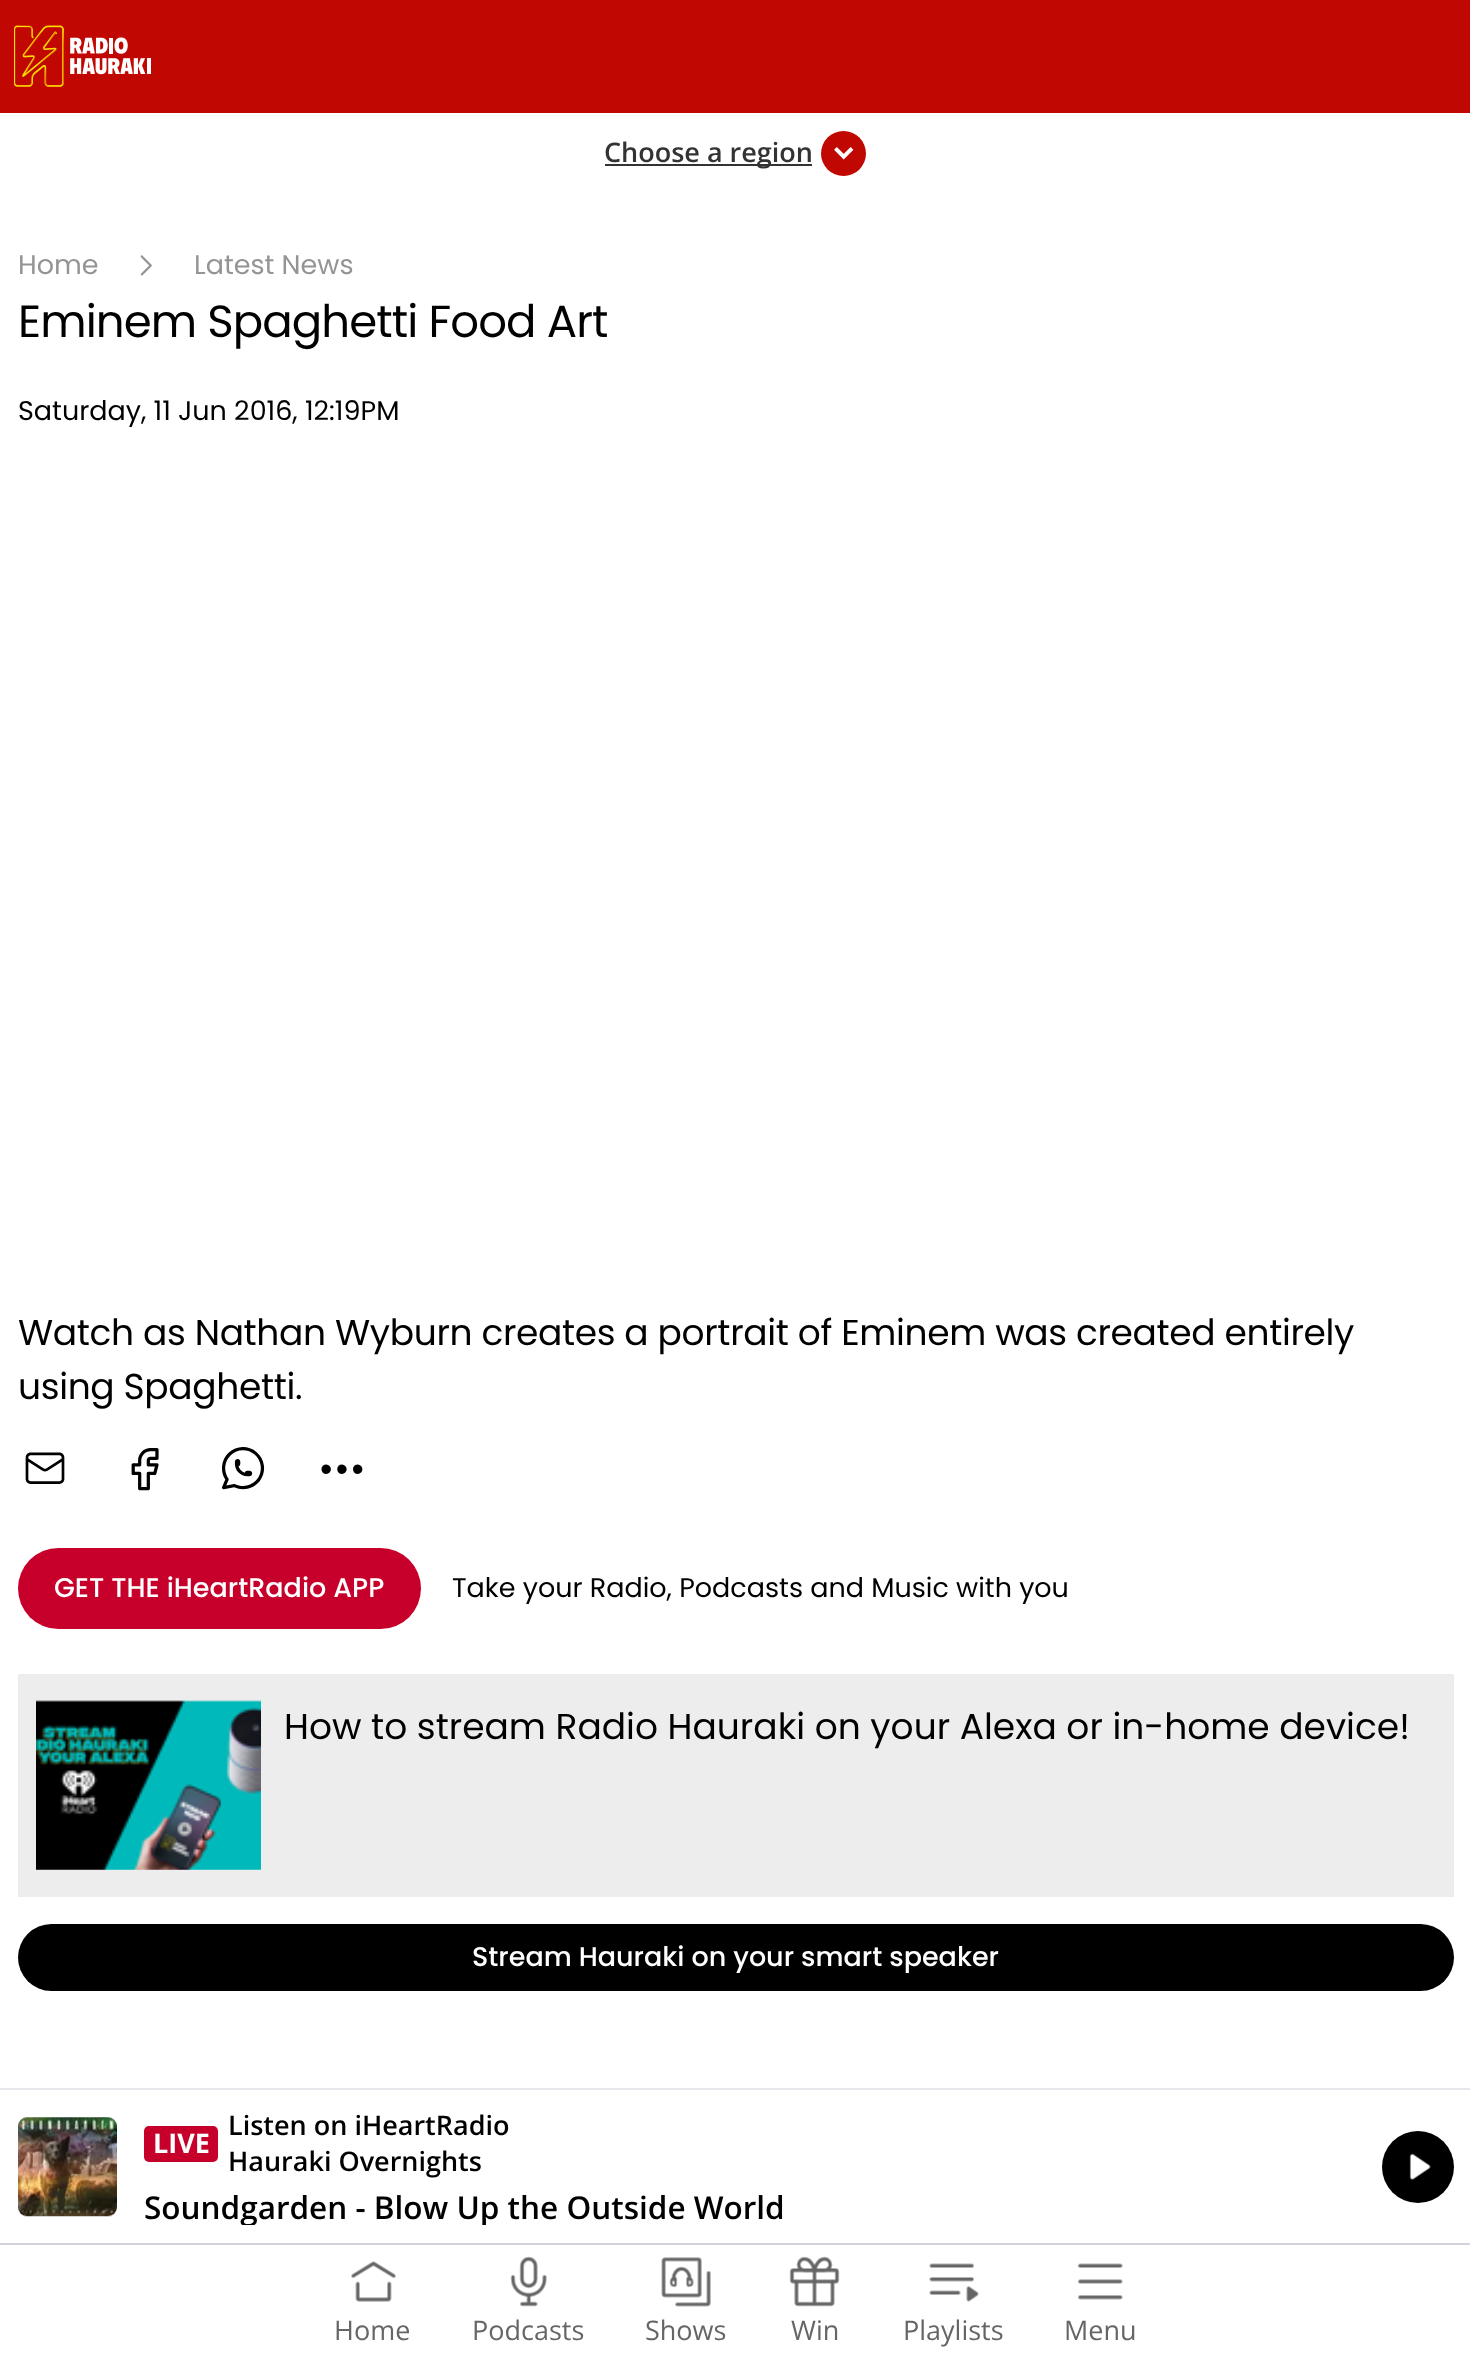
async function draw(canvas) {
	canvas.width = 1470;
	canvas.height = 2357;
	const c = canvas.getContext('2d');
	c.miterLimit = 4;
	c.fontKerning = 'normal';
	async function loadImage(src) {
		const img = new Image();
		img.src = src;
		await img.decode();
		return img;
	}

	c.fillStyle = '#fff';
	c.fillRect(0, 0, 1470, 2357);
	c.fillStyle = '#c10701';
	c.fillRect(0, 0, 1470, 113);
	c.drawImage(await loadImage('img1.png'), 14, 25, 137, 62);
	c.fillStyle = '#333';
	c.fillRect(605, 164, 207, 2);
	c.font = '600 27px Open Sans';
	c.fillText('Choose a region', 604, 162);
	c.fillStyle = '#c10701';
	c.beginPath();
	c.arc(843.5, 153.5, 22.5, 0, 2 * Math.PI);
	c.fill();
	c.drawImage(await loadImage('img2.png'), 834, 147, 20, 13);
	c.font = '27px Poppins';
	c.fillStyle = '#949494';
	c.fillText('Home', 18, 274);
	c.drawImage(await loadImage('img3.png'), 140, 255, 12, 21);
	c.fillText('Latest News', 194, 274);
	c.letterSpacing = '-0.9px';
	c.font = '45px Poppins';
	c.fillStyle = '#000';
	c.fillText('Eminem Spaghetti Food Art', 18, 337);
	c.letterSpacing = '0px';
	c.font = '27px Poppins';
	c.fillText('Saturday, 11 Jun 2016, 12:19PM', 18, 420);
	c.letterSpacing = '-0.35px';
	c.font = '36px Poppins';
	c.fillText('Watch as Nathan Wyburn creates a portrait of Eminem was created entirely', 18, 1345);
	c.fillText('using Spaghetti.', 18, 1399);
	c.drawImage(await loadImage('img4.png'), 25, 1452, 40, 32);
	c.drawImage(await loadImage('img5.png'), 131, 1448, 28, 43);
	c.drawImage(await loadImage('img6.png'), 222, 1447, 43, 43);
	c.drawImage(await loadImage('img7.png'), 321, 1464, 42, 10);
	c.fillStyle = '#c7002b';
	c.beginPath();
	c.roundRect(18, 1548, 403, 81, 40.5);
	c.fill();
	c.letterSpacing = '0px';
	c.font = '500 27px Poppins';
	c.fillStyle = '#fff';
	c.fillText('GET THE iHeartRadio APP', 54, 1597);
	c.font = '27px Poppins';
	c.fillStyle = '#000';
	c.fillText('Take your Radio, Podcasts and Music with you', 452, 1597);
	c.fillStyle = '#ededed';
	c.fillRect(18, 1674, 1436, 223);
	c.fillStyle = '#e6e6e6';
	c.fillRect(36, 1701, 225, 169);
	c.drawImage(await loadImage('img8.png'), 36, 1700, 225, 170);
	c.font = '36px Poppins';
	c.fillStyle = '#000';
	c.fillText('How to stream Radio Hauraki on your Alexa or in-home device!', 284, 1739);
	c.beginPath();
	c.roundRect(18, 1924, 1436, 67, 33.5);
	c.fill();
	c.font = '500 27px Poppins';
	c.fillStyle = '#fff';
	c.fillText('Stream Hauraki on your smart speaker', 472, 1966);
	c.fillStyle = '#e5e7eb';
	c.fillRect(0, 2088, 1470, 2);
	c.drawImage(await loadImage('img9.png'), 18, 2117, 99, 100);
	c.fillStyle = '#c7002b';
	c.beginPath();
	c.roundRect(144, 2126, 74, 36, 5);
	c.fill();
	c.font = 'bold 27px Open Sans';
	c.fillStyle = '#fff';
	c.fillText('LIVE', 153, 2153);
	c.font = '600 27px Open Sans';
	c.fillStyle = '#000';
	c.fillText('Listen on iHeartRadio', 228, 2135);
	c.fillText('Hauraki Overnights', 228, 2171);
	c.save();
	c.beginPath();
	c.rect(144, 2189, 1220, 36);
	c.clip();
	c.font = '600 31.5px Open Sans';
	c.fillText('Soundgarden - Blow Up the Outside World', 144, 2219);
	c.restore();
	c.beginPath();
	c.arc(1418, 2167, 36, 0, 2 * Math.PI);
	c.fill();
	c.drawImage(await loadImage('img10.png'), 1409, 2153, 22, 27);
	c.fillStyle = '#d1d5db';
	c.fillRect(0, 2243, 1470, 2);
	c.drawImage(await loadImage('img11.png'), 351, 2261, 45, 41);
	c.font = '27px Open Sans';
	c.fillStyle = '#666';
	c.fillText('Home', 334, 2340);
	c.drawImage(await loadImage('img12.png'), 510, 2256, 37, 51);
	c.fillText('Podcasts', 472, 2340);
	c.drawImage(await loadImage('img13.png'), 661, 2257, 50, 50);
	c.fillText('Shows', 645, 2340);
	c.drawImage(await loadImage('img14.png'), 789, 2256, 51, 51);
	c.fillText('Win', 791, 2340);
	c.drawImage(await loadImage('img15.png'), 929, 2263, 50, 39);
	c.fillText('Playlists', 903, 2340);
	c.drawImage(await loadImage('img16.png'), 1077, 2263, 46, 37);
	c.fillText('Menu', 1064, 2340);
}

draw(document.querySelector('canvas'));
